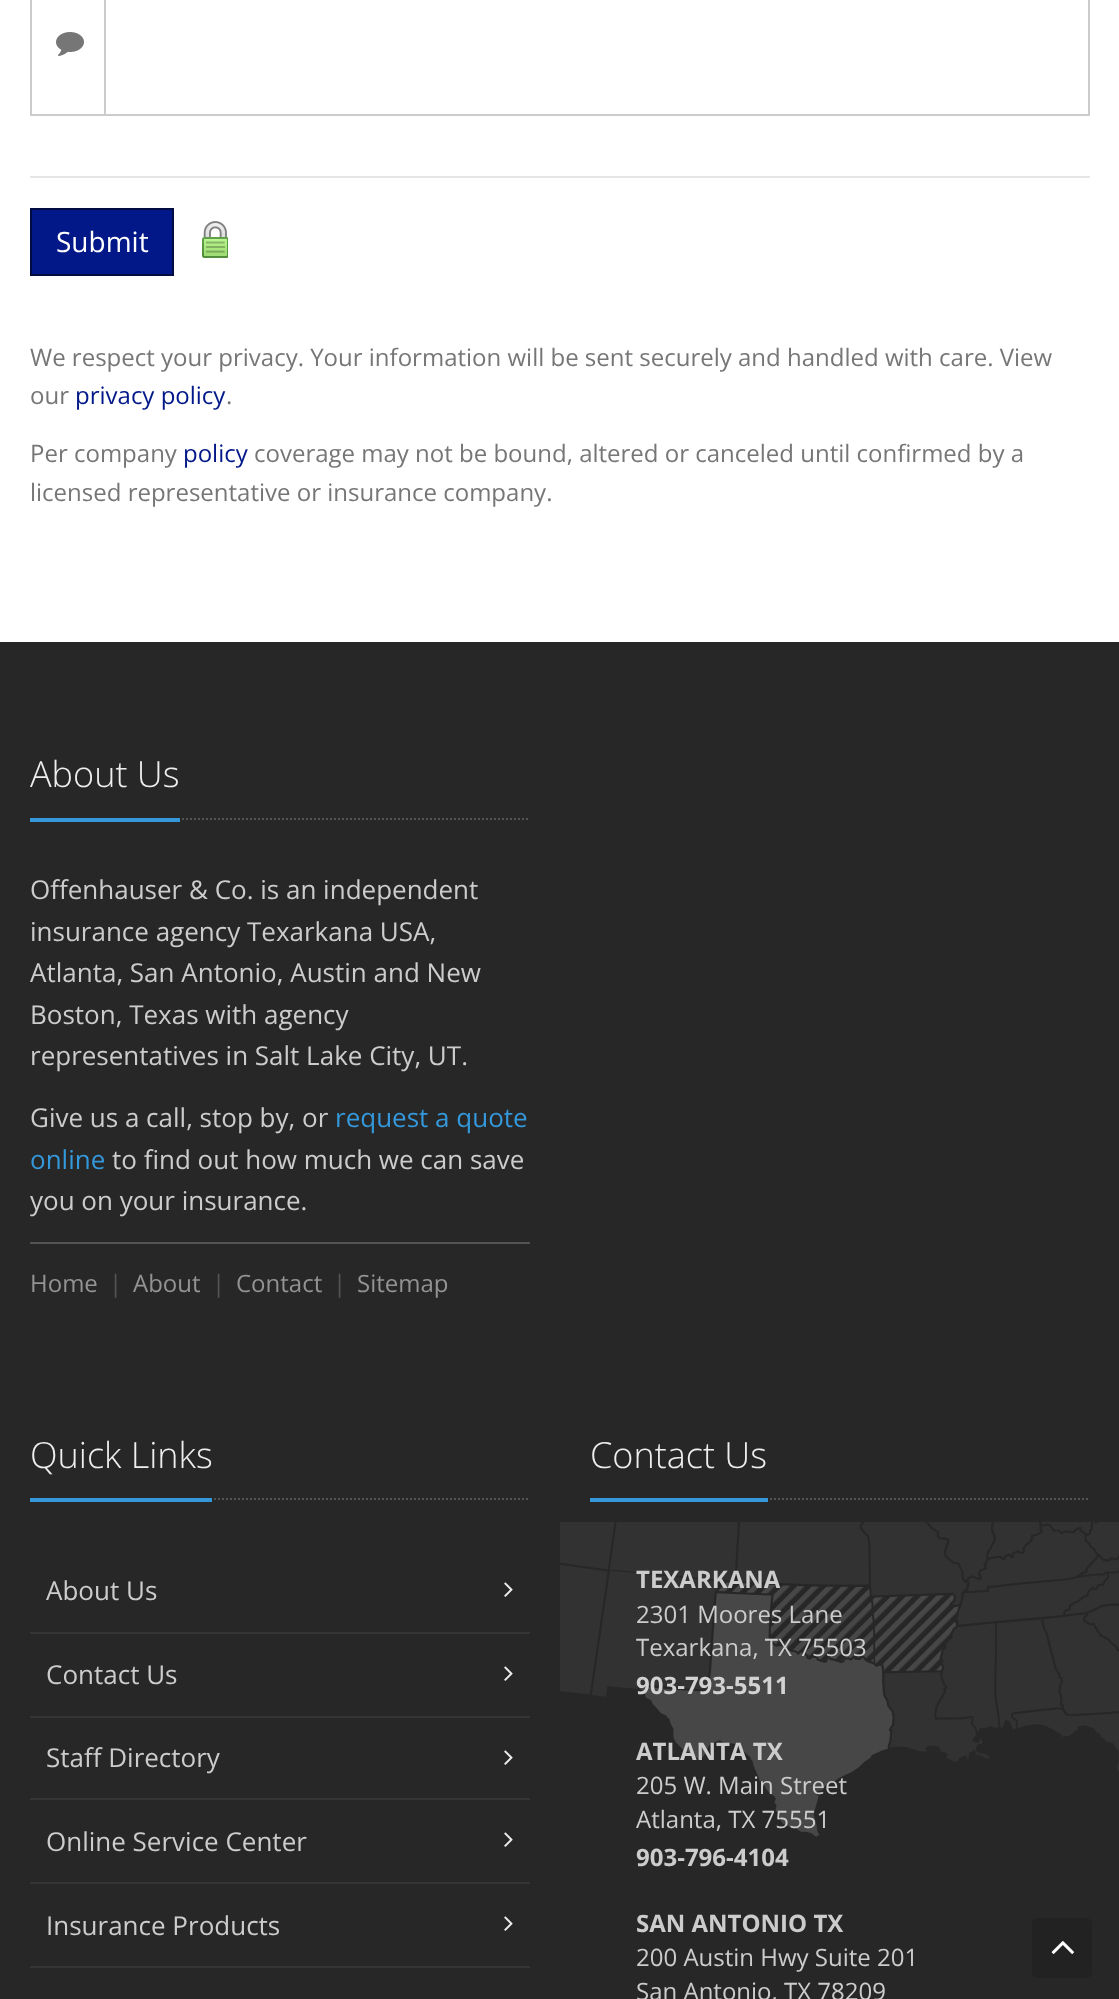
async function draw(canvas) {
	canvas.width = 1119;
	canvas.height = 1999;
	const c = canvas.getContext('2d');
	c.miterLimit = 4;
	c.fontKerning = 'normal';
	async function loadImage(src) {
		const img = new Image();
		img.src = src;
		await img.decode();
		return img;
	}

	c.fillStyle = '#fff';
	c.fillRect(0, 0, 1119, 1999);
	c.fillStyle = '#ccc';
	c.fillRect(30, 114, 74, 2);
	c.fillRect(30, 0, 2, 116);
	c.drawImage(await loadImage('img1.png'), 56, 32, 28, 24);
	c.strokeStyle = '#ccc';
	c.lineWidth = 2;
	c.strokeRect(105, -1, 984, 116);
	c.fillStyle = '#e6e6e6';
	c.fillRect(30, 176, 1060, 2);
	c.fillStyle = '#021889';
	c.beginPath();
	c.rect(31, 209, 142, 66);
	c.fill();
	c.strokeStyle = '#010c43';
	c.stroke();
	c.font = '28px Open Sans';
	c.fillStyle = '#fff';
	c.fillText('Submit', 56, 252);
	c.drawImage(await loadImage('img2.png'), 202, 221, 26, 37);
	c.font = '24px Open Sans';
	c.fillStyle = '#767676';
	c.fillText('We respect your privacy. Your information will be sent securely and handled with care. View', 30, 366);
	c.fillText('our', 30, 404);
	c.fillStyle = '#021889';
	c.fillText('privacy policy', 75, 404);
	c.fillStyle = '#767676';
	c.fillText('.', 226, 404);
	c.fillText('Per company', 30, 462);
	c.fillStyle = '#021889';
	c.fillText('policy', 183, 462);
	c.fillStyle = '#767676';
	c.fillText('coverage may not be bound, altered or canceled until confirmed by a', 254, 462);
	c.fillText('licensed representative or insurance company.', 30, 501);
	c.fillStyle = '#272727';
	c.fillRect(0, 642, 1119, 1357);
	c.beginPath();
	c.moveTo(30, 819);
	c.lineTo(530, 819);
	c.strokeStyle = '#545454';
	c.setLineDash([2, 2]);
	c.stroke();
	c.fillStyle = '#3498db';
	c.fillRect(30, 818, 150, 4);
	c.font = '300 36px Open Sans';
	c.fillStyle = '#eee';
	c.fillText('About Us', 30, 787);
	c.font = '26px Open Sans';
	c.fillStyle = '#ccc';
	for (const [text, x, y] of [
		['Offenhauser & Co. is an independent', 30, 899],
		['insurance agency Texarkana USA,', 30, 941],
		['Atlanta, San Antonio, Austin and New', 30, 982],
		['Boston, Texas with agency', 30, 1024],
		['representatives in Salt Lake City, UT.', 30, 1065],
		['Give us a call, stop by, or', 30, 1127],
	]) {
		c.fillText(text, x, y);
	}
	c.fillStyle = '#3498db';
	c.fillText('request a quote', 335, 1127);
	c.fillText('online', 30, 1169);
	c.fillStyle = '#ccc';
	c.fillText('to find out how much we can save', 112, 1169);
	c.fillText('you on your insurance.', 30, 1210);
	c.fillStyle = '#545454';
	c.fillRect(30, 1242, 500, 2);
	c.font = '24px Open Sans';
	c.fillStyle = '#939393';
	c.fillText('Home', 30, 1292);
	c.fillStyle = '#555';
	c.fillText('|', 109, 1292);
	c.fillStyle = '#939393';
	c.fillText('About', 133, 1292);
	c.fillStyle = '#555';
	c.fillText('|', 212, 1292);
	c.fillStyle = '#939393';
	c.fillText('Contact', 236, 1292);
	c.fillStyle = '#555';
	c.fillText('|', 333, 1292);
	c.fillStyle = '#939393';
	c.fillText('Sitemap', 357, 1292);
	c.beginPath();
	c.moveTo(30, 1499);
	c.lineTo(530, 1499);
	c.stroke();
	c.fillStyle = '#3498db';
	c.fillRect(30, 1498, 182, 4);
	c.font = '300 36px Open Sans';
	c.fillStyle = '#eee';
	c.fillText('Quick Links', 30, 1468);
	c.font = '26px Open Sans';
	c.fillStyle = '#ccc';
	c.fillText('About Us', 46, 1600);
	c.drawImage(await loadImage('img3.png'), 504, 1582, 9, 15);
	c.fillStyle = '#353535';
	c.fillRect(30, 1632, 500, 2);
	c.fillStyle = '#ccc';
	c.fillText('Contact Us', 46, 1684);
	c.drawImage(await loadImage('img3.png'), 504, 1666, 9, 15);
	c.fillStyle = '#353535';
	c.fillRect(30, 1716, 500, 2);
	c.fillStyle = '#ccc';
	c.fillText('Staff Directory', 46, 1767);
	c.drawImage(await loadImage('img3.png'), 504, 1750, 9, 15);
	c.fillStyle = '#353535';
	c.fillRect(30, 1798, 500, 2);
	c.fillStyle = '#ccc';
	c.fillText('Online Service Center', 46, 1851);
	c.drawImage(await loadImage('img3.png'), 504, 1832, 9, 15);
	c.fillStyle = '#353535';
	c.fillRect(30, 1882, 500, 2);
	c.fillStyle = '#ccc';
	c.fillText('Insurance Products', 46, 1935);
	c.drawImage(await loadImage('img3.png'), 504, 1916, 9, 15);
	c.fillStyle = '#353535';
	c.fillRect(30, 1966, 500, 2);
	c.drawImage(await loadImage('img4.png'), 560, 1522, 559, 315);
	c.beginPath();
	c.moveTo(590, 1499);
	c.lineTo(1090, 1499);
	c.stroke();
	c.fillStyle = '#3498db';
	c.fillRect(590, 1498, 178, 4);
	c.font = '300 36px Open Sans';
	c.fillStyle = '#eee';
	c.fillText('Contact Us', 590, 1468);
	c.font = 'bold 24px Open Sans';
	c.fillStyle = '#ccc';
	c.fillText('TEXARKANA', 636, 1588);
	c.font = '24px Open Sans';
	c.fillText('2301 Moores Lane', 636, 1623);
	c.fillText('Texarkana, TX 75503', 636, 1656);
	c.font = 'bold 24px Open Sans';
	c.fillStyle = '#d2d2d2';
	c.fillText('903-793-5511', 636, 1694);
	c.fillStyle = '#ccc';
	c.fillText('ATLANTA TX', 636, 1760);
	c.font = '24px Open Sans';
	c.fillText('205 W. Main Street', 636, 1794);
	c.fillText('Atlanta, TX 75551', 636, 1828);
	c.font = 'bold 24px Open Sans';
	c.fillText('903-796-4104', 636, 1866);
	c.fillText('SAN ANTONIO TX', 636, 1932);
	c.font = '24px Open Sans';
	c.fillText('200 Austin Hwy Suite 201', 636, 1966);
	c.fillText('San Antonio, TX 78209', 636, 2000);
	c.fillStyle = '#222';
	c.beginPath();
	c.roundRect(1032, 1918, 60, 60, 6);
	c.fill();
	c.drawImage(await loadImage('img5.png'), 1051, 1941, 23, 13);
}

draw(document.querySelector('canvas'));
